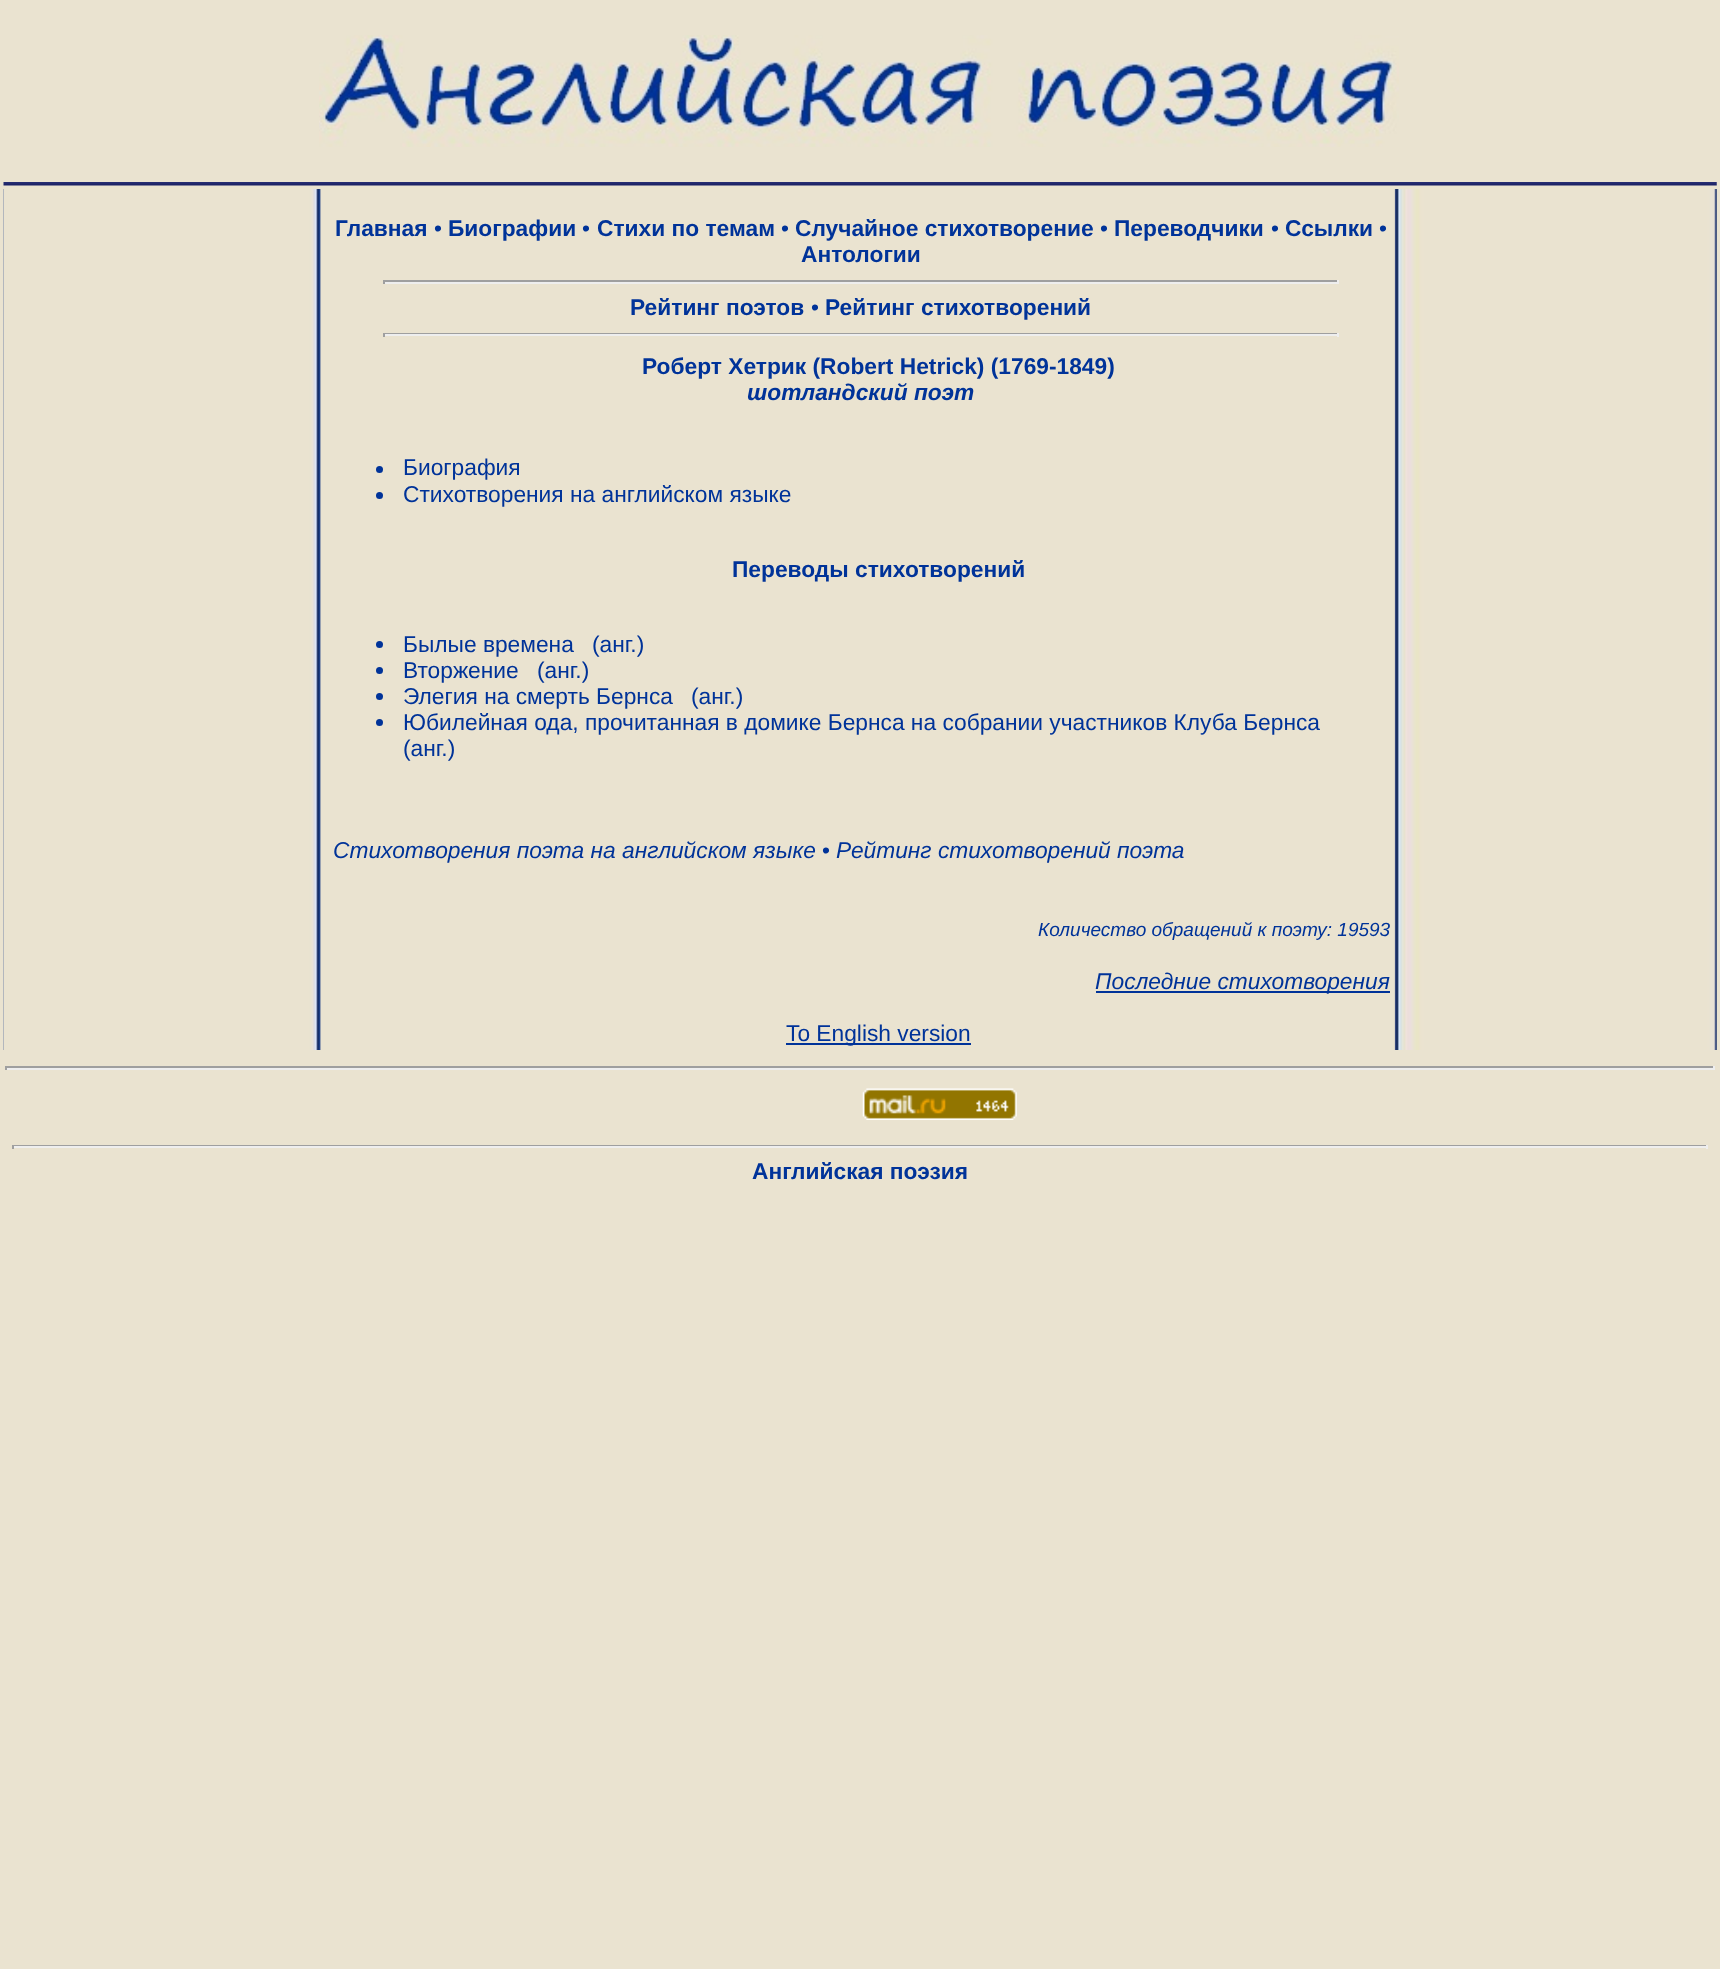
async function draw(canvas) {
	canvas.width = 1720;
	canvas.height = 1969;
	const c = canvas.getContext('2d');
	c.miterLimit = 4;
	c.fontKerning = 'normal';
	async function loadImage(src) {
		const img = new Image();
		img.src = src;
		await img.decode();
		return img;
	}

	c.fillStyle = '#eae3d0';
	c.fillRect(0, 0, 1720, 1969);
	c.drawImage(await loadImage('img1.png'), 319, 35, 1080, 112);
	c.drawImage(await loadImage('img2.png'), 3, 182, 1714, 4);
	c.drawImage(await loadImage('img3.png'), 3, 189, 318, 861);
	c.font = 'bold 22.75px Liberation Sans';
	c.fillStyle = '#039';
	c.fillText('Главная', 335, 236);
	c.font = '22.75px Liberation Sans';
	c.fillText('•', 434, 236);
	c.font = 'bold 22.75px Liberation Sans';
	c.fillText('Биографии', 448, 236);
	c.font = '22.75px Liberation Sans';
	c.fillText('•', 582, 236);
	c.font = 'bold 22.75px Liberation Sans';
	c.fillText('Стихи по темам', 597, 236);
	c.font = '22.75px Liberation Sans';
	c.fillText('•', 781, 236);
	c.font = 'bold 22.75px Liberation Sans';
	c.fillText('Случайное стихотворение', 795, 236);
	c.font = '22.75px Liberation Sans';
	c.fillText('•', 1100, 236);
	c.font = 'bold 22.75px Liberation Sans';
	c.fillText('Переводчики', 1114, 236);
	c.font = '22.75px Liberation Sans';
	c.fillText('•', 1271, 236);
	c.font = 'bold 22.75px Liberation Sans';
	c.fillText('Ссылки', 1285, 236);
	c.font = '22.75px Liberation Sans';
	c.fillText('•', 1379, 236);
	c.font = 'bold 22.75px Liberation Sans';
	c.fillText('Антологии', 801, 262);
	for (const [x, y, w, h, color] of [
		[383, 280, 956, 2, '#9f9f9f'],
		[1337, 280, 2, 4, '#eee'],
		[383, 282, 956, 2, '#eee'],
		[383, 280, 2, 4, '#9f9f9f'],
	]) {
		c.fillStyle = color;
		c.fillRect(x, y, w, h);
	}
	c.fillStyle = '#039';
	c.fillText('Рейтинг поэтов', 630, 315);
	c.font = '22.75px Liberation Sans';
	c.fillText('•', 811, 315);
	c.font = 'bold 22.75px Liberation Sans';
	c.fillText('Рейтинг стихотворений', 825, 315);
	for (const [x, y, w, h, color] of [
		[383, 333, 956, 1, '#9f9f9f'],
		[1337, 333, 2, 4, '#eee'],
		[383, 334, 956, 2, '#eee'],
		[383, 333, 2, 4, '#9f9f9f'],
	]) {
		c.fillStyle = color;
		c.fillRect(x, y, w, h);
	}
	c.drawImage(await loadImage('img4.png'), 1394, 189, 323, 861);
	c.fillStyle = '#039';
	c.fillText('Роберт Хетрик (Robert Hetrick) (1769-1849)', 642, 374);
	c.font = 'italic bold 22.75px Liberation Sans';
	c.fillText('шотландский поэт', 747, 400);
	c.beginPath();
	c.arc(379.5, 469.5, 3.5, 0, 2 * Math.PI);
	c.fill();
	c.font = '22.75px Liberation Sans';
	c.fillText('Биография', 403, 475);
	c.beginPath();
	c.arc(379.5, 495.5, 3.5, 0, 2 * Math.PI);
	c.fill();
	c.fillText('Стихотворения на английском языке', 403, 502);
	c.font = 'bold 22.75px Liberation Sans';
	c.fillText('Переводы стихотворений', 732, 577);
	c.beginPath();
	c.arc(379.5, 644.5, 3.5, 0, 2 * Math.PI);
	c.fill();
	c.font = '22.75px Liberation Sans';
	c.fillText('Былые времена', 403, 652);
	c.fillText('(анг.)', 592, 652);
	c.beginPath();
	c.arc(379.5, 670.5, 3.5, 0, 2 * Math.PI);
	c.fill();
	c.fillText('Вторжение', 403, 678);
	c.fillText('(анг.)', 537, 678);
	c.beginPath();
	c.arc(379.5, 696.5, 3.5, 0, 2 * Math.PI);
	c.fill();
	c.fillText('Элегия на смерть Бернса', 403, 704);
	c.fillText('(анг.)', 691, 704);
	c.beginPath();
	c.arc(379.5, 722.5, 3.5, 0, 2 * Math.PI);
	c.fill();
	c.fillText('Юбилейная ода, прочитанная в домике Бернса на собрании участников Клуба Бернса', 403, 730);
	c.fillText('(анг.)', 403, 756);
	c.font = 'italic 22.75px Liberation Sans';
	c.fillText('Стихотворения поэта на английском языке', 333, 858);
	c.font = '22.75px Liberation Sans';
	c.fillText('•', 822, 858);
	c.font = 'italic 22.75px Liberation Sans';
	c.fillText('Рейтинг стихотворений поэта', 836, 858);
	c.font = 'italic 19px Liberation Sans';
	c.fillText('Количество обращений к поэту: 19593', 1038, 936);
	c.fillRect(1096, 991, 294, 2);
	c.font = 'italic 22.75px Liberation Sans';
	c.fillText('Последние стихотворения', 1095, 989);
	c.fillRect(786, 1043, 185, 2);
	c.font = '22.75px Liberation Sans';
	c.fillText('To English version', 786, 1041);
	for (const [x, y, w, h, color] of [
		[5, 1066, 1710, 2, '#9f9f9f'],
		[1713, 1066, 2, 4, '#eee'],
		[5, 1068, 1710, 2, '#eee'],
		[5, 1066, 2, 4, '#9f9f9f'],
	]) {
		c.fillStyle = color;
		c.fillRect(x, y, w, h);
	}
	c.drawImage(await loadImage('img5.png'), 862, 1088, 155, 32);
	for (const [x, y, w, h, color] of [
		[12, 1145, 1696, 1, '#9f9f9f'],
		[1706, 1145, 2, 4, '#eee'],
		[12, 1146, 1696, 2, '#eee'],
		[12, 1145, 2, 4, '#9f9f9f'],
	]) {
		c.fillStyle = color;
		c.fillRect(x, y, w, h);
	}
	c.font = 'bold 22.75px Liberation Sans';
	c.fillStyle = '#039';
	c.fillText('Английская поэзия', 752, 1179);
}

draw(document.querySelector('canvas'));
